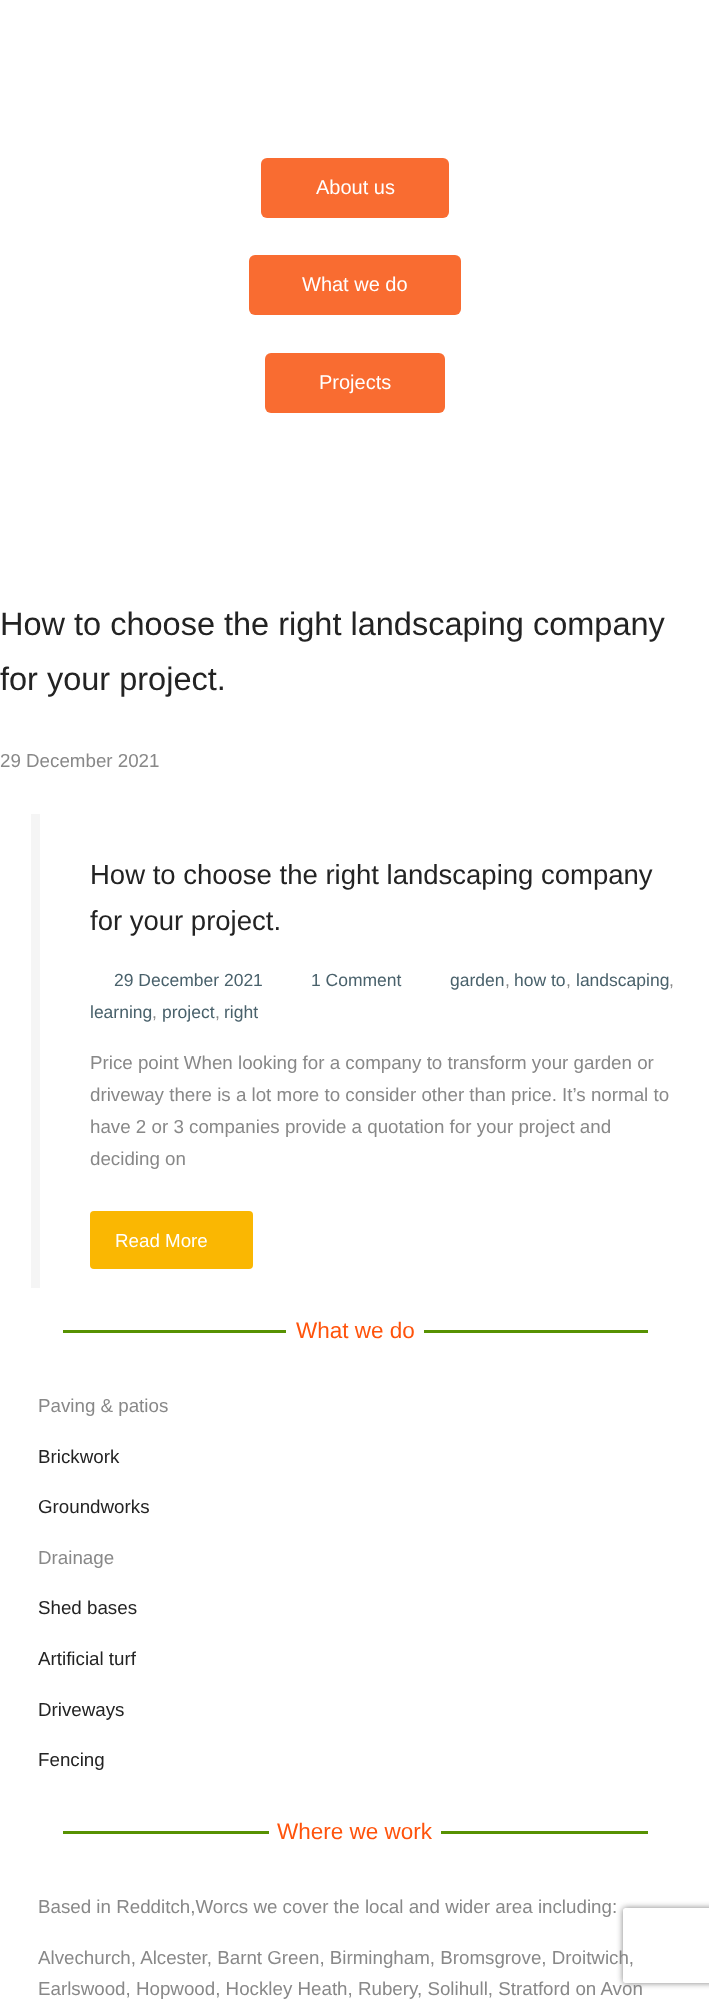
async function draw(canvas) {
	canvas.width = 709;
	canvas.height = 1999;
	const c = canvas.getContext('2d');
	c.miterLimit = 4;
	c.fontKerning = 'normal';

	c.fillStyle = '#fff';
	c.fillRect(0, 0, 709, 1999);
	c.fillStyle = '#f96c31';
	c.beginPath();
	c.roundRect(261, 158, 188, 60, 6);
	c.fill();
	c.font = '20px Liberation Sans';
	c.fillStyle = '#fff';
	c.fillText('About us', 316, 194);
	c.fillStyle = '#f96c31';
	c.beginPath();
	c.roundRect(249, 255, 212, 60, 6);
	c.fill();
	c.fillStyle = '#fff';
	c.fillText('What we do', 302, 291);
	c.fillStyle = '#f96c31';
	c.beginPath();
	c.roundRect(265, 353, 180, 60, 6);
	c.fill();
	c.fillStyle = '#fff';
	c.fillText('Projects', 319, 389);
	c.font = '32.5px Liberation Sans';
	c.fillStyle = '#232323';
	c.fillText('How to choose the right landscaping company', 0, 635);
	c.fillText('for your project.', 0, 690);
	c.font = '18.75px Liberation Sans';
	c.fillStyle = '#888';
	c.fillText('29 December 2021', 0, 767);
	c.fillStyle = '#f5f5f5';
	c.fillRect(31, 814, 9, 474);
	c.font = '27.5px Liberation Sans';
	c.fillStyle = '#232323';
	c.fillText('How to choose the right landscaping company', 90, 884);
	c.fillText('for your project.', 90, 930);
	c.font = '17.5px Liberation Sans';
	c.fillStyle = '#49616b';
	for (const [text, x, y] of [
		['29 December 2021', 114, 986],
		['1 Comment', 311, 986],
		['garden', 450, 986],
	]) {
		c.fillText(text, x, y);
	}
	c.fillStyle = '#888';
	c.fillText(',', 505, 986);
	c.fillStyle = '#49616b';
	c.fillText('how to', 514, 986);
	c.fillStyle = '#888';
	c.fillText(',', 566, 986);
	c.fillStyle = '#49616b';
	c.fillText('landscaping', 576, 986);
	c.fillStyle = '#888';
	c.fillText(',', 669, 986);
	c.fillStyle = '#49616b';
	c.fillText('learning', 90, 1018);
	c.fillStyle = '#888';
	c.fillText(',', 152, 1018);
	c.fillStyle = '#49616b';
	c.fillText('project', 162, 1018);
	c.fillStyle = '#888';
	c.fillText(',', 215, 1018);
	c.fillStyle = '#49616b';
	c.fillText('right', 224, 1018);
	c.font = '18.75px Liberation Sans';
	c.fillStyle = '#888';
	for (const [text, x, y] of [
		['Price point When looking for a company to transform your garden or', 90, 1069],
		['driveway there is a lot more to consider other than price. It’s normal to', 90, 1101],
		['have 2 or 3 companies provide a quotation for your project and', 90, 1133],
		['deciding on', 90, 1165],
	]) {
		c.fillText(text, x, y);
	}
	c.fillStyle = '#fab702';
	c.beginPath();
	c.roundRect(90, 1211, 163, 58, 4);
	c.fill();
	c.fillStyle = '#fff';
	c.fillText('Read More', 115, 1247);
	c.fillStyle = '#579202';
	c.fillRect(63, 1330, 223, 3);
	c.font = '22.5px Liberation Sans';
	c.fillStyle = '#ff530b';
	c.fillText('What we do', 296, 1338);
	c.fillStyle = '#579202';
	c.fillRect(424, 1330, 224, 3);
	c.font = '18.75px Liberation Sans';
	c.fillStyle = '#888';
	c.fillText('Paving & patios', 38, 1412);
	c.fillStyle = '#232323';
	c.fillText('Brickwork', 38, 1463);
	c.fillText('Groundworks', 38, 1513);
	c.fillStyle = '#888';
	c.fillText('Drainage', 38, 1564);
	c.fillStyle = '#232323';
	for (const [text, x, y] of [
		['Shed bases', 38, 1614],
		['Artificial turf', 38, 1665],
		['Driveways', 38, 1716],
		['Fencing', 38, 1766],
	]) {
		c.fillText(text, x, y);
	}
	c.fillStyle = '#579202';
	c.fillRect(63, 1831, 206, 3);
	c.font = '22.5px Liberation Sans';
	c.fillStyle = '#ff530b';
	c.fillText('Where we work', 277, 1839);
	c.fillStyle = '#579202';
	c.fillRect(441, 1831, 207, 3);
	c.font = '18.75px Liberation Sans';
	c.fillStyle = '#888';
	for (const [text, x, y] of [
		['Based in Redditch,Worcs we cover the local and wider area including:', 38, 1913],
		['Alvechurch, Alcester, Barnt Green, Birmingham, Bromsgrove, Droitwich,', 38, 1964],
		['Earlswood, Hopwood, Hockley Heath, Rubery, Solihull, Stratford on Avon', 38, 1995],
	]) {
		c.fillText(text, x, y);
	}
	c.save();
	c.beginPath();
	c.moveTo(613, 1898);
	c.lineTo(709, 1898);
	c.lineTo(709, 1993);
	c.lineTo(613, 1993);
	c.closePath();
	c.moveTo(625.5, 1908);
	c.lineTo(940.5, 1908);
	c.bezierCurveTo(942, 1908, 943, 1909, 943, 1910.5);
	c.lineTo(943, 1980.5);
	c.bezierCurveTo(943, 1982, 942, 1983, 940.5, 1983);
	c.lineTo(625.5, 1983);
	c.bezierCurveTo(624, 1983, 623, 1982, 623, 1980.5);
	c.lineTo(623, 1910.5);
	c.bezierCurveTo(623, 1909, 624, 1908, 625.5, 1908);
	c.closePath();
	c.clip('evenodd');
	c.fillStyle = '#808080';
	c.filter = 'blur(3px)';
	c.beginPath();
	c.roundRect(623, 1908, 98, 75, 2.5);
	c.fill();
	c.filter = 'none';
	c.restore();
}

draw(document.querySelector('canvas'));
